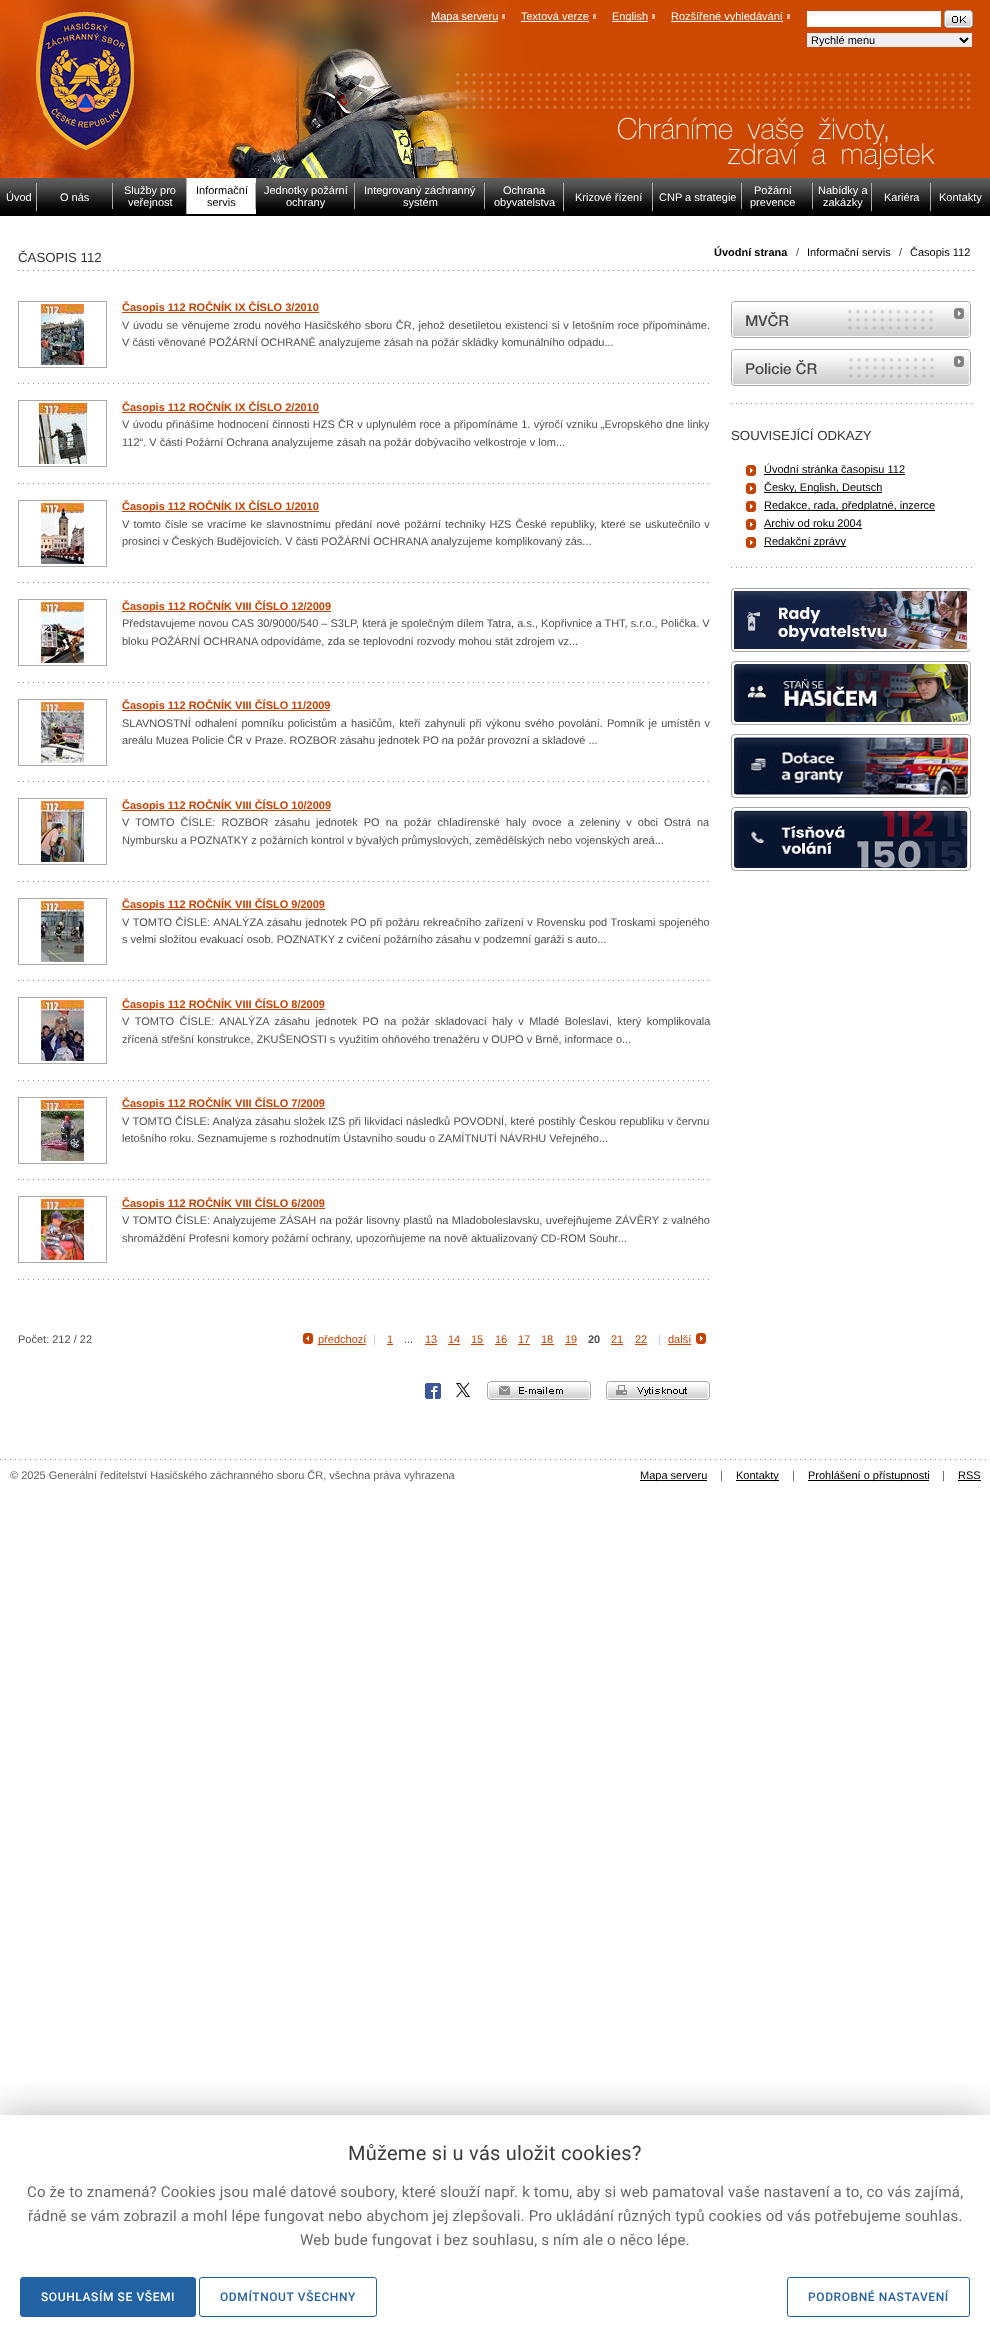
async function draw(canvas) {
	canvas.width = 990;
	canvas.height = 2337;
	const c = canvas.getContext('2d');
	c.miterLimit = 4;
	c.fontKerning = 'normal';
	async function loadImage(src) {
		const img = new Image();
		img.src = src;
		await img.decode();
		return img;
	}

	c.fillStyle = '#fff';
	c.fillRect(0, 0, 990, 2337);
	c.drawImage(await loadImage('img1.png'), 0, 0, 990, 178);
	c.drawImage(await loadImage('img2.png'), 6, 8, 138, 153);
	c.fillRect(431, 21, 67, 1);
	c.font = '11px Liberation Sans';
	c.fillText('Mapa serveru', 431, 20);
	c.fillStyle = '#ebb699';
	c.fillRect(502, 14, 3, 5);
	c.fillStyle = '#fff';
	c.fillText('Textová verze', 521, 20);
	for (const [x, y, w, h, color] of [
		[593, 14, 3, 5, '#ebb699'],
		[521, 21, 68, 1, '#fff'],
		[612, 21, 36, 1, '#fff'],
	]) {
		c.fillStyle = color;
		c.fillRect(x, y, w, h);
	}
	c.fillText('English', 612, 20);
	c.fillStyle = '#ebb699';
	c.fillRect(652, 14, 3, 5);
	c.fillStyle = '#fff';
	c.fillRect(671, 21, 112, 1);
	c.fillText('Rozšířené vyhledávání', 671, 20);
	c.fillStyle = '#ebb699';
	c.fillRect(787, 14, 3, 5);
	c.fillStyle = '#fff';
	c.fillRect(807, 11, 134, 16);
	c.drawImage(await loadImage('img3.png'), 944, 10, 29, 18);
	c.fillStyle = '#efefef';
	c.fillRect(807, 33, 165, 14);
	c.beginPath();
	c.moveTo(960, 38);
	c.lineTo(964, 42);
	c.lineTo(968, 38);
	c.strokeStyle = '#000';
	c.lineWidth = 2;
	c.stroke();
	c.fillStyle = '#000';
	c.fillText('Rychlé menu', 811, 44);
	c.fillStyle = '#010101';
	c.fillRect(0, 209, 990, 7);
	c.drawImage(await loadImage('img4.png'), 0, 178, 990, 31);
	c.fillStyle = '#fff';
	c.fillText('Úvod', 6, 201);
	c.fillStyle = '#adadad';
	c.fillRect(36, 183, 1, 28);
	c.fillStyle = '#fff';
	c.fillText('O nás', 60, 201);
	c.fillStyle = '#adadad';
	c.fillRect(112, 183, 1, 26);
	c.fillStyle = '#fff';
	c.fillText('Služby pro', 124, 194);
	c.fillText('veřejnost', 128, 206);
	c.fillRect(187, 178, 69, 36);
	c.fillStyle = '#adadad';
	c.fillRect(186, 178, 1, 36);
	c.fillStyle = '#000';
	c.fillText('Informační', 196, 194);
	c.fillText('servis', 207, 206);
	c.fillStyle = '#adadad';
	c.fillRect(255, 183, 1, 26);
	c.fillStyle = '#fff';
	c.fillText('Jednotky požární', 264, 194);
	c.fillText('ochrany', 286, 206);
	c.fillStyle = '#adadad';
	c.fillRect(354, 183, 1, 26);
	c.fillStyle = '#fff';
	c.fillText('Integrovaný záchranný', 364, 194);
	c.fillText('systém', 403, 206);
	c.fillStyle = '#adadad';
	c.fillRect(484, 183, 1, 26);
	c.fillStyle = '#fff';
	c.fillText('Ochrana', 503, 194);
	c.fillText('obyvatelstva', 494, 206);
	c.fillStyle = '#adadad';
	c.fillRect(563, 183, 1, 28);
	c.fillStyle = '#fff';
	c.fillText('Krizové řízení', 575, 201);
	c.fillStyle = '#adadad';
	c.fillRect(652, 183, 1, 28);
	c.fillStyle = '#fff';
	c.fillText('CNP a strategie', 659, 201);
	c.fillStyle = '#adadad';
	c.fillRect(741, 183, 1, 26);
	c.fillStyle = '#fff';
	c.fillText('Požární', 754, 194);
	c.fillText('prevence', 750, 206);
	c.fillStyle = '#adadad';
	c.fillRect(812, 183, 1, 26);
	c.fillStyle = '#fff';
	c.fillText('Nabídky a', 818, 194);
	c.fillText('zakázky', 823, 206);
	c.fillStyle = '#adadad';
	c.fillRect(871, 183, 1, 28);
	c.fillStyle = '#fff';
	c.fillText('Kariéra', 884, 201);
	c.fillStyle = '#adadad';
	c.fillRect(930, 183, 1, 28);
	c.fillStyle = '#fff';
	c.fillText('Kontakty', 939, 201);
	c.drawImage(await loadImage('img5.png'), 18, 270, 956, 1);
	c.font = '13.25px Liberation Sans';
	c.fillStyle = '#333';
	c.fillText('ČASOPIS 112', 18, 262);
	c.font = 'bold 11px Liberation Sans';
	c.fillStyle = '#000';
	c.fillText('Úvodní strana', 714, 256);
	c.font = '11px Liberation Sans';
	c.fillStyle = '#4f4f4f';
	c.fillText('/', 796, 256);
	c.fillStyle = '#000';
	c.fillText('Informační servis', 807, 256);
	c.fillStyle = '#4f4f4f';
	c.fillText('/', 899, 256);
	c.fillStyle = '#000';
	c.fillText('Časopis 112', 910, 256);
	c.drawImage(await loadImage('img6.png'), 18, 383, 691, 1);
	c.strokeStyle = '#a9a9a9';
	c.lineWidth = 1;
	c.strokeRect(18.5, 301.5, 88, 66);
	c.drawImage(await loadImage('img7.png'), 41, 304, 43, 61);
	c.fillStyle = '#c74200';
	c.fillRect(122, 312, 197, 1);
	c.font = 'bold 11px Liberation Sans';
	c.fillText('Časopis 112 ROČNÍK IX ČÍSLO 3/2010', 122, 311);
	c.wordSpacing = '0.6px';
	c.font = '11px Liberation Sans';
	c.fillStyle = '#4f4f4f';
	c.fillText('V úvodu se věnujeme zrodu nového Hasičského sboru ČR, jehož desetiletou existenci si v letošním roce připomínáme.', 122, 329);
	c.wordSpacing = '0px';
	c.fillText('V části věnované POŽÁRNÍ OCHRANĚ analyzujeme zásah na požár skládky komunálního odpadu...', 122, 346);
	c.drawImage(await loadImage('img6.png'), 18, 483, 691, 1);
	c.strokeRect(18.5, 400.5, 88, 66);
	c.drawImage(await loadImage('img8.png'), 39, 403, 48, 61);
	c.fillStyle = '#c74200';
	c.fillRect(122, 412, 197, 1);
	c.font = 'bold 11px Liberation Sans';
	c.fillText('Časopis 112 ROČNÍK IX ČÍSLO 2/2010', 122, 411);
	c.wordSpacing = '0.25px';
	c.font = '11px Liberation Sans';
	c.fillStyle = '#4f4f4f';
	c.fillText('V úvodu přinášíme hodnocení činnosti HZS ČR v uplynulém roce a připomínáme 1. výročí vzniku „Evropského dne linky', 122, 428);
	c.wordSpacing = '0px';
	c.fillText('112“. V části Požární Ochrana analyzujeme zásah na požár dobývacího velkostroje v lom...', 122, 446);
	c.drawImage(await loadImage('img6.png'), 18, 582, 691, 1);
	c.strokeRect(18.5, 500.5, 88, 66);
	c.drawImage(await loadImage('img9.png'), 41, 503, 43, 61);
	c.fillStyle = '#c74200';
	c.fillRect(122, 511, 197, 1);
	c.font = 'bold 11px Liberation Sans';
	c.fillText('Časopis 112 ROČNÍK IX ČÍSLO 1/2010', 122, 510);
	c.wordSpacing = '1px';
	c.font = '11px Liberation Sans';
	c.fillStyle = '#4f4f4f';
	c.fillText('V tomto čísle se vracíme ke slavnostnímu předání nové požární techniky HZS České republiky, které se uskutečnilo v', 122, 528);
	c.wordSpacing = '0px';
	c.fillText('prosinci v Českých Budějovicích. V části POŽÁRNÍ OCHRANA analyzujeme komplikovaný zás...', 122, 545);
	c.drawImage(await loadImage('img6.png'), 18, 682, 691, 1);
	c.strokeRect(18.5, 599.5, 88, 66);
	c.drawImage(await loadImage('img10.png'), 41, 602, 43, 61);
	c.fillStyle = '#c74200';
	c.fillRect(122, 611, 209, 1);
	c.font = 'bold 11px Liberation Sans';
	c.fillText('Časopis 112 ROČNÍK VIII ČÍSLO 12/2009', 122, 610);
	c.font = '11px Liberation Sans';
	c.fillStyle = '#4f4f4f';
	c.fillText('Představujeme novou CAS 30/9000/540 – S3LP, která je společným dílem Tatra, a.s., Kopřivnice a THT, s.r.o., Polička. V', 122, 627);
	c.fillText('bloku POŽÁRNÍ OCHRANA odpovídáme, zda se teplovodní rozvody mohou stát zdrojem vz...', 122, 645);
	c.drawImage(await loadImage('img6.png'), 18, 781, 691, 1);
	c.strokeRect(18.5, 699.5, 88, 66);
	c.drawImage(await loadImage('img11.png'), 41, 702, 43, 61);
	c.fillStyle = '#c74200';
	c.fillRect(122, 710, 208, 1);
	c.font = 'bold 11px Liberation Sans';
	c.fillText('Časopis 112 ROČNÍK VIII ČÍSLO 11/2009', 122, 709);
	c.wordSpacing = '1.1px';
	c.font = '11px Liberation Sans';
	c.fillStyle = '#4f4f4f';
	c.fillText('SLAVNOSTNÍ odhalení pomníku policistům a hasičům, kteří zahynuli při výkonu svého povolání. Pomník je umístěn v', 122, 727);
	c.wordSpacing = '0px';
	c.fillText('areálu Muzea Policie ČR v Praze. ROZBOR zásahu jednotek PO na požár provozní a skladové ...', 122, 744);
	c.drawImage(await loadImage('img6.png'), 18, 881, 691, 1);
	c.strokeRect(18.5, 798.5, 88, 66);
	c.drawImage(await loadImage('img12.png'), 41, 801, 43, 61);
	c.fillStyle = '#c74200';
	c.fillRect(122, 810, 209, 1);
	c.font = 'bold 11px Liberation Sans';
	c.fillText('Časopis 112 ROČNÍK VIII ČÍSLO 10/2009', 122, 809);
	c.wordSpacing = '3px';
	c.font = '11px Liberation Sans';
	c.fillStyle = '#4f4f4f';
	c.fillText('V TOMTO ČÍSLE: ROZBOR zásahu jednotek PO na požár chladírenské haly ovoce a zeleniny v obci Ostrá na', 122, 826);
	c.wordSpacing = '0px';
	c.fillText('Nymbursku a POZNATKY z požárních kontrol v bývalých průmyslových, zemědělských nebo vojenských areá...', 122, 844);
	c.drawImage(await loadImage('img6.png'), 18, 980, 691, 1);
	c.strokeRect(18.5, 898.5, 88, 66);
	c.drawImage(await loadImage('img13.png'), 41, 901, 43, 61);
	c.fillStyle = '#c74200';
	c.fillRect(122, 909, 203, 1);
	c.font = 'bold 11px Liberation Sans';
	c.fillText('Časopis 112 ROČNÍK VIII ČÍSLO 9/2009', 122, 908);
	c.wordSpacing = '0.5px';
	c.font = '11px Liberation Sans';
	c.fillStyle = '#4f4f4f';
	c.fillText('V TOMTO ČÍSLE: ANALÝZA zásahu jednotek PO při požáru rekreačního zařízení v Rovensku pod Troskami spojeného', 122, 926);
	c.wordSpacing = '0px';
	c.fillText('s velmi složitou evakuací osob. POZNATKY z cvičení požárního zásahu v podzemní garáži s auto...', 122, 943);
	c.drawImage(await loadImage('img6.png'), 18, 1080, 691, 1);
	c.strokeRect(18.5, 997.5, 88, 66);
	c.drawImage(await loadImage('img14.png'), 41, 1000, 43, 61);
	c.fillStyle = '#c74200';
	c.fillRect(122, 1009, 203, 1);
	c.font = 'bold 11px Liberation Sans';
	c.fillText('Časopis 112 ROČNÍK VIII ČÍSLO 8/2009', 122, 1008);
	c.wordSpacing = '2.5px';
	c.font = '11px Liberation Sans';
	c.fillStyle = '#4f4f4f';
	c.fillText('V TOMTO ČÍSLE: ANALÝZA zásahu jednotek PO na požár skladovací haly v Mladé Boleslavi, který komplikovala', 122, 1025);
	c.wordSpacing = '0px';
	c.fillText('zřícená střešní konstrukce, ZKUŠENOSTI s využitím ohňového trenažéru v OUPO v Brně, informace o...', 122, 1043);
	c.drawImage(await loadImage('img6.png'), 18, 1179, 691, 1);
	c.strokeRect(18.5, 1097.5, 88, 66);
	c.drawImage(await loadImage('img15.png'), 41, 1100, 43, 61);
	c.fillStyle = '#c74200';
	c.fillRect(122, 1108, 203, 1);
	c.font = 'bold 11px Liberation Sans';
	c.fillText('Časopis 112 ROČNÍK VIII ČÍSLO 7/2009', 122, 1107);
	c.wordSpacing = '0.25px';
	c.font = '11px Liberation Sans';
	c.fillStyle = '#4f4f4f';
	c.fillText('V TOMTO ČÍSLE: Analýza zásahu složek IZS při likvidaci následků POVODNÍ, které postihly Českou republiku v červnu', 122, 1125);
	c.wordSpacing = '0px';
	c.fillText('letošního roku. Seznamujeme s rozhodnutím Ústavního soudu o ZAMÍTNUTÍ NÁVRHU Veřejného...', 122, 1142);
	c.drawImage(await loadImage('img6.png'), 18, 1279, 691, 1);
	c.strokeRect(18.5, 1196.5, 88, 66);
	c.drawImage(await loadImage('img16.png'), 41, 1199, 43, 61);
	c.fillStyle = '#c74200';
	c.fillRect(122, 1208, 203, 1);
	c.font = 'bold 11px Liberation Sans';
	c.fillText('Časopis 112 ROČNÍK VIII ČÍSLO 6/2009', 122, 1207);
	c.wordSpacing = '0.4px';
	c.font = '11px Liberation Sans';
	c.fillStyle = '#4f4f4f';
	c.fillText('V TOMTO ČÍSLE: Analyzujeme ZÁSAH na požár lisovny plastů na Mladoboleslavsku, uveřejňujeme ZÁVĚRY z valného', 122, 1224);
	c.wordSpacing = '0px';
	c.fillText('shromáždění Profesní komory požární ochrany, upozorňujeme na nově aktualizovaný CD-ROM Souhr...', 122, 1242);
	c.fillText('Počet: 212 / 22', 18, 1343);
	c.drawImage(await loadImage('img17.png'), 303, 1333, 10, 11);
	c.fillStyle = '#c74200';
	c.fillRect(318, 1344, 48, 1);
	c.fillText('předchozí', 318, 1343);
	c.fillStyle = '#ccc';
	c.fillText('|', 373, 1343);
	c.fillStyle = '#c74200';
	c.fillText('1', 387, 1343);
	c.fillRect(387, 1344, 6, 1);
	c.fillStyle = '#4f4f4f';
	c.fillText('...', 404, 1343);
	c.fillStyle = '#c74200';
	c.fillText('13', 425, 1343);
	c.fillRect(425, 1344, 12, 1);
	c.fillText('14', 448, 1343);
	c.fillRect(448, 1344, 12, 1);
	c.fillText('15', 471, 1343);
	c.fillRect(471, 1344, 13, 1);
	c.fillText('16', 495, 1343);
	c.fillRect(495, 1344, 12, 1);
	c.fillText('17', 518, 1343);
	c.fillRect(518, 1344, 12, 1);
	c.fillText('18', 541, 1343);
	c.fillRect(541, 1344, 13, 1);
	c.fillText('19', 565, 1343);
	c.fillRect(565, 1344, 12, 1);
	c.font = 'bold 11px Liberation Sans';
	c.fillStyle = '#4f4f4f';
	c.fillText('20', 588, 1343);
	c.font = '11px Liberation Sans';
	c.fillStyle = '#c74200';
	c.fillText('21', 611, 1343);
	c.fillRect(611, 1344, 12, 1);
	c.fillText('22', 635, 1343);
	c.fillRect(635, 1344, 12, 1);
	c.fillStyle = '#ccc';
	c.fillText('|', 658, 1343);
	c.fillStyle = '#c74200';
	c.fillText('další', 668, 1343);
	c.fillRect(668, 1344, 23, 1);
	c.drawImage(await loadImage('img18.png'), 696, 1333, 10, 11);
	c.drawImage(await loadImage('img19.png'), 425, 1383, 16, 16);
	c.drawImage(await loadImage('img20.png'), 456, 1383, 14, 14);
	c.drawImage(await loadImage('img21.png'), 487, 1381, 104, 19);
	c.drawImage(await loadImage('img22.png'), 606, 1381, 104, 19);
	c.drawImage(await loadImage('img23.png'), 731, 403, 241, 1);
	c.drawImage(await loadImage('img24.png'), 731, 301, 240, 37);
	c.drawImage(await loadImage('img25.png'), 731, 349, 240, 37);
	c.font = '13.25px Liberation Sans';
	c.fillStyle = '#333';
	c.fillText('SOUVISEJÍCÍ ODKAZY', 731, 440);
	c.drawImage(await loadImage('img23.png'), 731, 567, 241, 1);
	c.drawImage(await loadImage('img18.png'), 746, 465, 10, 11);
	c.fillStyle = '#000';
	c.fillRect(764, 474, 141, 1);
	c.font = '11px Liberation Sans';
	c.fillText('Úvodní stránka časopisu 112', 764, 473);
	c.drawImage(await loadImage('img18.png'), 746, 483, 10, 11);
	c.fillRect(764, 492, 118, 1);
	c.fillText('Česky, English, Deutsch', 764, 491);
	c.drawImage(await loadImage('img18.png'), 746, 501, 10, 11);
	c.fillRect(764, 510, 171, 1);
	c.fillText('Redakce, rada, předplatné, inzerce', 764, 509);
	c.drawImage(await loadImage('img18.png'), 746, 519, 10, 11);
	c.fillText('Archiv od roku 2004', 764, 527);
	c.fillRect(764, 528, 98, 1);
	c.drawImage(await loadImage('img18.png'), 746, 537, 10, 11);
	c.fillRect(764, 546, 82, 1);
	c.fillText('Redakční zprávy', 764, 545);
	c.drawImage(await loadImage('img26.png'), 731, 588, 239, 64);
	c.drawImage(await loadImage('img27.png'), 731, 661, 240, 64);
	c.drawImage(await loadImage('img28.png'), 731, 734, 240, 64);
	c.drawImage(await loadImage('img29.png'), 731, 807, 240, 64);
	c.drawImage(await loadImage('img30.png'), 0, 1459, 986, 1);
	c.fillStyle = '#5f5f5f';
	c.fillText('© 2025 Generální ředitelství Hasičského záchranného sboru ČR, všechna práva vyhrazena', 10, 1479);
	c.fillStyle = '#000';
	c.fillRect(640, 1480, 67, 1);
	c.fillText('Mapa serveru', 640, 1479);
	c.fillStyle = '#5f5f5f';
	c.fillText('|', 720, 1479);
	c.fillStyle = '#000';
	c.fillRect(736, 1480, 43, 1);
	c.fillText('Kontakty', 736, 1479);
	c.fillStyle = '#5f5f5f';
	c.fillText('|', 792, 1479);
	c.fillStyle = '#000';
	c.fillRect(808, 1480, 121, 1);
	c.fillText('Prohlášení o přístupnosti', 808, 1479);
	c.fillStyle = '#5f5f5f';
	c.fillText('|', 942, 1479);
	c.fillStyle = '#000';
	c.fillText('RSS', 958, 1479);
	c.fillRect(958, 1480, 23, 1);
	c.save();
	c.beginPath();
	c.rect(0, 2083, 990, 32);
	c.clip();
	c.fillStyle = '#3b3b3b66';
	c.filter = 'blur(20px)';
	c.beginPath();
	c.rect(0, 2116, 990, 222);
	c.fill();
	c.filter = 'none';
	c.restore();
	c.letterSpacing = '0.25px';
	c.font = '20px Roboto';
	c.fillStyle = '#3b3b3b';
	c.fillText('Můžeme si u vás uložit cookies?', 348, 2160);
	c.letterSpacing = '0.19px';
	c.font = '15px Roboto';
	c.fillStyle = '#686868';
	for (const [text, x, y] of [
		['Co že to znamená? Cookies jsou malé datové soubory, které slouží např. k tomu, aby si web pamatoval vaše nastavení a to, co vás zajímá,', 27, 2197],
		['řádně se vám zobrazil a mohl lépe fungovat nebo abychom jej zlepšovali. Pro ukládání různých typů cookies od vás potřebujeme souhlas.', 28, 2221],
		['Web bude fungovat i bez souhlasu, s ním ale o něco lépe.', 300, 2245],
	]) {
		c.fillText(text, x, y);
	}
	c.fillStyle = '#2362a2';
	c.beginPath();
	c.roundRect(20.5, 2277.5, 175, 39, 2.5);
	c.fill();
	c.strokeStyle = '#2362a2';
	c.stroke();
	c.letterSpacing = '0.6px';
	c.font = '500 12px Roboto';
	c.fillStyle = '#fff';
	c.fillText('SOUHLASÍM SE VŠEMI', 41, 2301);
	c.beginPath();
	c.roundRect(199.5, 2277.5, 177, 39, 2.5);
	c.stroke();
	c.fillStyle = '#2362a2';
	c.fillText('ODMÍTNOUT VŠECHNY', 220, 2301);
	c.beginPath();
	c.roundRect(787.5, 2277.5, 182, 39, 2.5);
	c.stroke();
	c.fillText('PODROBNÉ NASTAVENÍ', 808, 2301);
}

draw(document.querySelector('canvas'));
